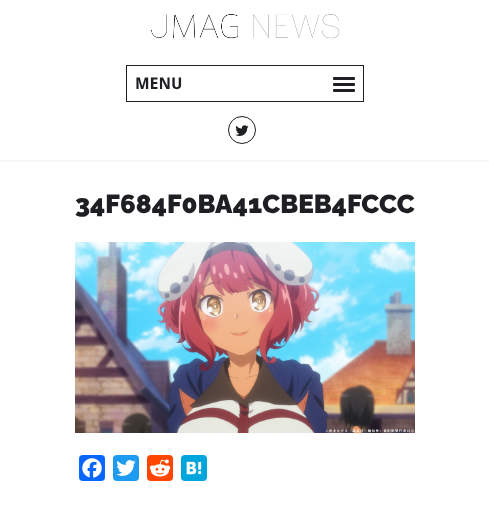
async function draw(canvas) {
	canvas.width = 489;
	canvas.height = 506;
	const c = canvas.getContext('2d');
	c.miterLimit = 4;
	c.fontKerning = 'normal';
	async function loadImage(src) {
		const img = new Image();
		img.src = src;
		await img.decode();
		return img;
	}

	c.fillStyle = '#fff';
	c.fillRect(0, 0, 489, 506);
	c.save();
	c.beginPath();
	c.rect(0, 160, 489, 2);
	c.clip();
	c.fillStyle = '#0000001a';
	c.filter = 'blur(2px)';
	c.beginPath();
	c.rect(0, 0, 489, 160);
	c.fill();
	c.filter = 'none';
	c.restore();
	c.drawImage(await loadImage('img1.png'), 151, 14, 189, 25);
	c.strokeStyle = '#1d1f22';
	c.strokeRect(126.5, 65.5, 237, 36);
	c.font = 'bold 16px Droid Sans';
	c.fillStyle = '#1d1f22';
	c.fillText('MENU', 135, 89);
	c.beginPath();
	c.roundRect(333, 77, 22, 3, 1);
	c.fill();
	c.beginPath();
	c.roundRect(333, 83, 22, 3, 1);
	c.fill();
	c.beginPath();
	c.roundRect(333, 89, 22, 3, 1);
	c.fill();
	c.beginPath();
	c.arc(242, 130, 13.5, 0, 2 * Math.PI);
	c.stroke();
	c.drawImage(await loadImage('img2.png'), 235, 125, 14, 11);
	c.font = '900 26px Raleway';
	c.fillText('34F684F0BA41CBEB4FCCC', 75, 213);
	c.drawImage(await loadImage('img3.png'), 75, 242, 340, 191);
	c.fillStyle = '#0866ff';
	c.beginPath();
	c.roundRect(79, 455, 26, 26, 4);
	c.fill();
	c.drawImage(await loadImage('img4.png'), 82, 458, 20, 20);
	c.fillStyle = '#1d9bf0';
	c.beginPath();
	c.roundRect(113, 455, 26, 26, 4);
	c.fill();
	c.drawImage(await loadImage('img5.png'), 116, 460, 20, 16);
	c.fillStyle = '#ff4500';
	c.beginPath();
	c.roundRect(147, 455, 26, 26, 4);
	c.fill();
	c.drawImage(await loadImage('img6.png'), 149, 459, 22, 18);
	c.fillStyle = '#00a6db';
	c.beginPath();
	c.roundRect(181, 455, 26, 26, 4);
	c.fill();
	c.drawImage(await loadImage('img7.png'), 186, 461, 16, 14);
}

draw(document.querySelector('canvas'));
